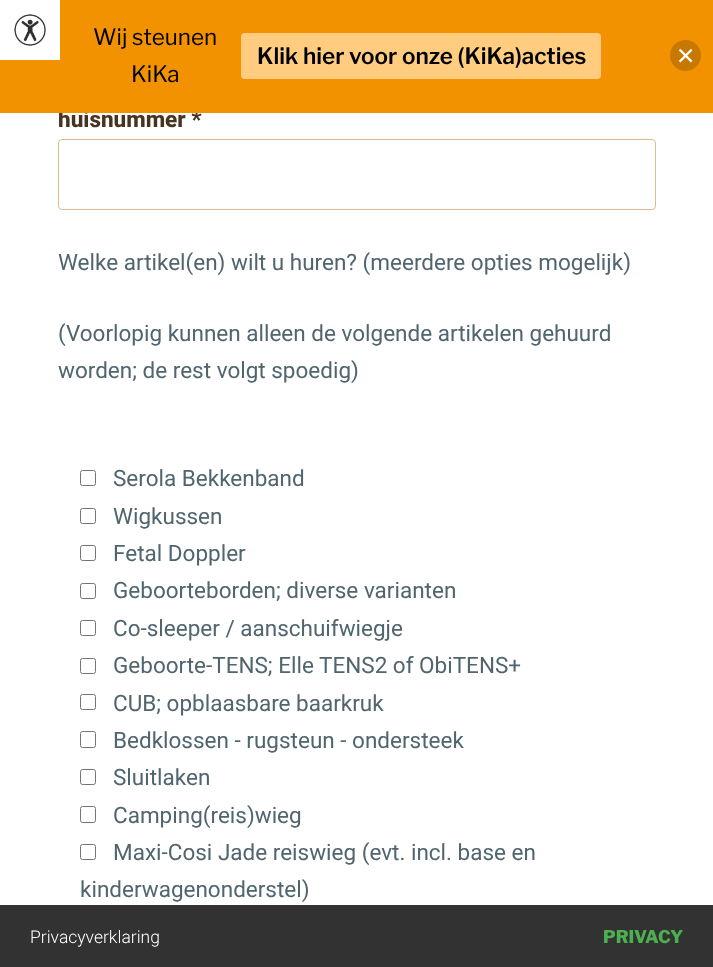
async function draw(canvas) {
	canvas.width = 713;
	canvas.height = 967;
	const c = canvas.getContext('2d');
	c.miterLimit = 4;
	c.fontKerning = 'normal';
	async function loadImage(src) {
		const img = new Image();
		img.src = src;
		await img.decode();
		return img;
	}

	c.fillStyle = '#fff';
	c.fillRect(0, 0, 713, 967);
	c.font = '800 22.5px Roboto';
	c.fillStyle = '#47341f';
	c.fillText('huisnummer *', 58, 127);
	c.fillStyle = '#f39200';
	c.fillRect(0, 0, 713, 113);
	c.fillStyle = '#fff';
	c.fillRect(0, 0, 60, 60);
	c.drawImage(await loadImage('img1.png'), 14, 14, 32, 32);
	c.font = '100 22.5px Libre Franklin';
	c.fillStyle = '#000';
	c.fillText('Wij steunen', 93, 45);
	c.fillText('KiKa', 131, 82);
	c.fillStyle = '#ffcc80';
	c.beginPath();
	c.roundRect(241, 33, 360, 46, 4);
	c.fill();
	c.font = '100 22.5px "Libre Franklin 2"';
	c.fillStyle = '#000';
	c.fillText('Klik hier voor onze (KiKa)acties', 257, 64);
	c.fillStyle = '#c77800';
	c.beginPath();
	c.arc(685.5, 55.5, 15.5, 0, 2 * Math.PI);
	c.fill();
	c.drawImage(await loadImage('img2.png'), 678, 48, 15, 15);
	c.beginPath();
	c.roundRect(58.5, 139.5, 597, 70, 3.5);
	c.strokeStyle = '#ddbc98';
	c.stroke();
	c.font = '22.5px Roboto';
	c.fillStyle = '#50656e';
	for (const [text, x, y] of [
		['Welke artikel(en) wilt u huren? (meerdere opties mogelijk)', 58, 270],
		['(Voorlopig kunnen alleen de volgende artikelen gehuurd', 58, 341],
		['worden; de rest volgt spoedig)', 58, 378],
	]) {
		c.fillText(text, x, y);
	}
	c.beginPath();
	c.roundRect(80.5, 470.5, 15, 15, 2);
	c.strokeStyle = '#767676';
	c.stroke();
	c.fillText('Serola Bekkenband', 113, 486);
	c.beginPath();
	c.roundRect(80.5, 508.5, 15, 15, 2);
	c.stroke();
	c.fillText('Wigkussen', 113, 524);
	c.beginPath();
	c.roundRect(80.5, 545.5, 15, 15, 2);
	c.stroke();
	c.fillText('Fetal Doppler', 113, 561);
	c.beginPath();
	c.roundRect(80.5, 583.5, 15, 15, 2);
	c.stroke();
	c.fillText('Geboorteborden; diverse varianten', 113, 598);
	c.beginPath();
	c.roundRect(80.5, 620.5, 15, 15, 2);
	c.stroke();
	c.fillText('Co-sleeper / aanschuifwiegje', 113, 636);
	c.beginPath();
	c.roundRect(80.5, 658.5, 15, 15, 2);
	c.stroke();
	c.fillText('Geboorte-TENS; Elle TENS2 of ObiTENS+', 113, 673);
	c.beginPath();
	c.roundRect(80.5, 694.5, 15, 15, 2);
	c.stroke();
	c.fillText('CUB; opblaasbare baarkruk', 113, 711);
	c.beginPath();
	c.roundRect(80.5, 731.5, 15, 16, 2);
	c.stroke();
	c.fillText('Bedklossen - rugsteun - ondersteek', 113, 748);
	c.beginPath();
	c.roundRect(80.5, 769.5, 15, 15, 2);
	c.stroke();
	c.fillText('Sluitlaken', 113, 785);
	c.beginPath();
	c.roundRect(80.5, 806.5, 15, 16, 2);
	c.stroke();
	c.fillText('Camping(reis)wieg', 113, 823);
	c.beginPath();
	c.roundRect(80.5, 844.5, 15, 15, 2);
	c.stroke();
	c.fillText('Maxi-Cosi Jade reiswieg (evt. incl. base en', 113, 860);
	c.fillText('kinderwagenonderstel)', 80, 897);
	c.fillStyle = '#323232';
	c.fillRect(0, 905, 713, 62);
	c.font = '300 17.5px Roboto';
	c.fillStyle = '#fff';
	c.fillText('Privacyverklaring', 30, 943);
	c.font = '100 17.5px "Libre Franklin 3"';
	c.fillStyle = '#4caf50';
	c.fillText('PRIVACY', 603, 943);
}

draw(document.querySelector('canvas'));
